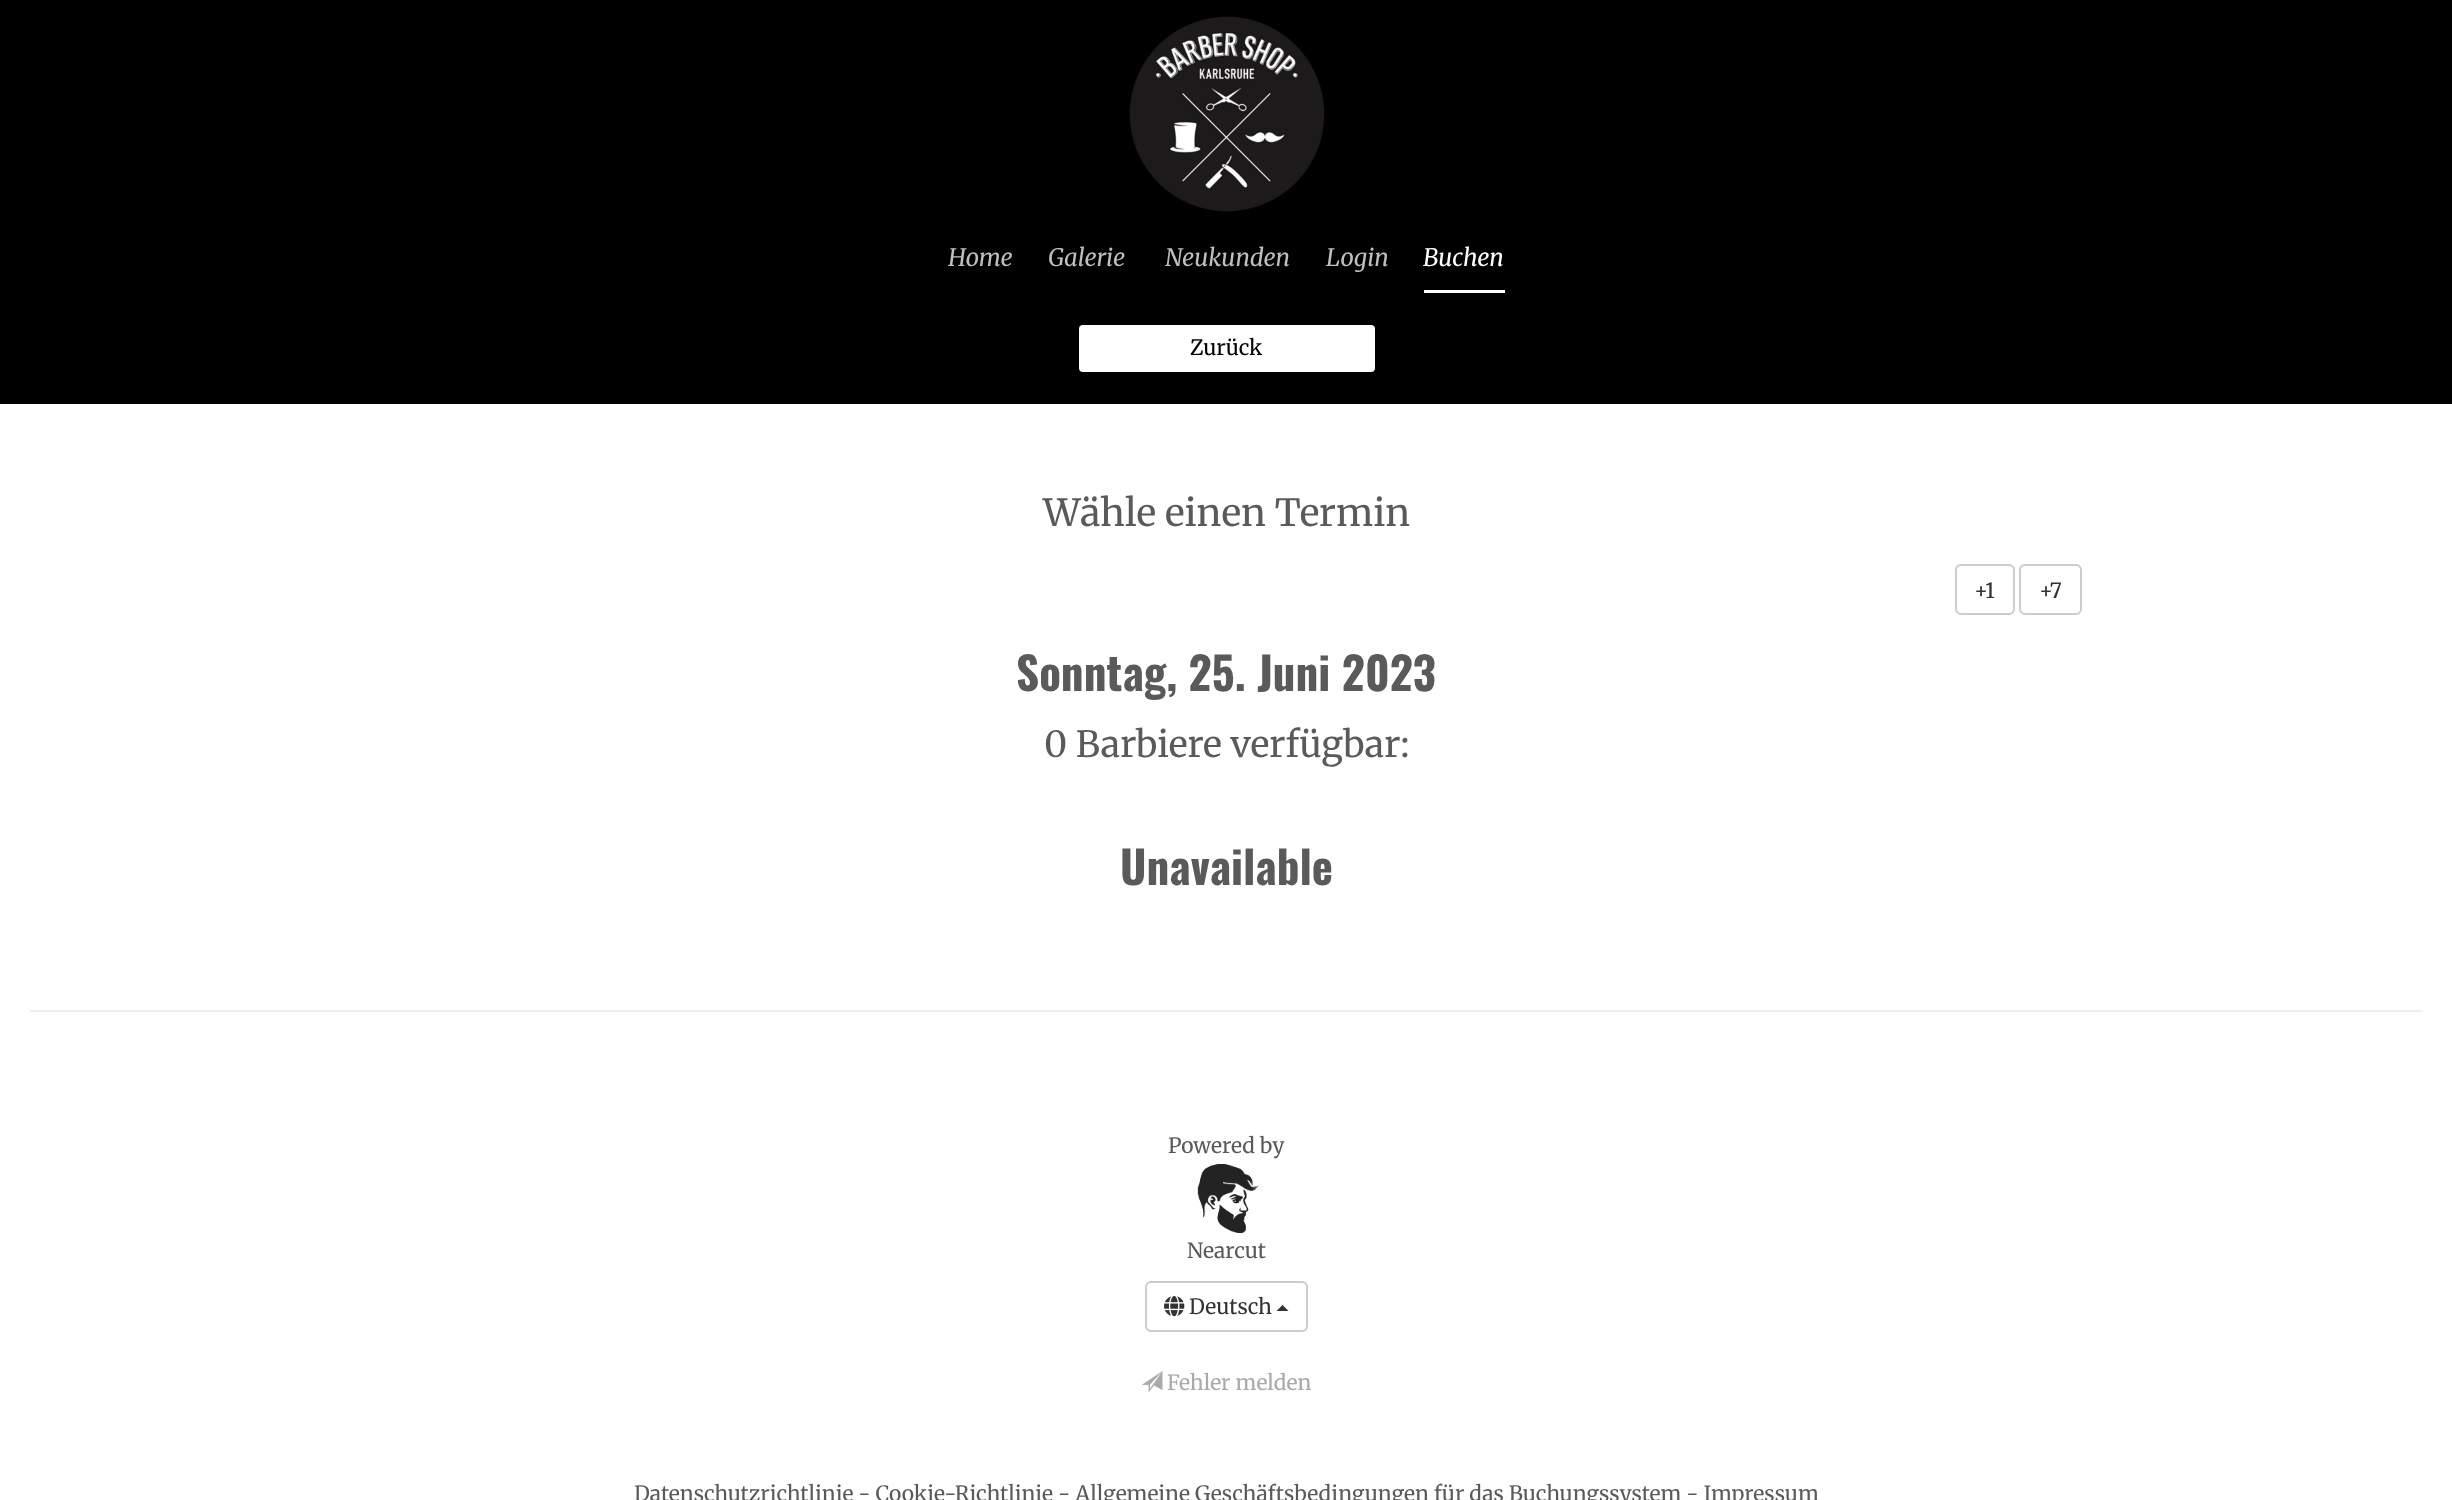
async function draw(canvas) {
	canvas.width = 2452;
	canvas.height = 1500;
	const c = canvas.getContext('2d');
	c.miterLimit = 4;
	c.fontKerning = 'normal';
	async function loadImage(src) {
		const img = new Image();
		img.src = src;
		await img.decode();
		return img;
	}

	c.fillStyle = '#fff';
	c.fillRect(0, 0, 2452, 1500);
	c.fillStyle = '#000';
	c.fillRect(0, 0, 2452, 404);
	c.drawImage(await loadImage('img1.png'), 1129, 16, 196, 196);
	c.font = 'italic 24px Merriweather';
	c.fillStyle = '#bfbfbf';
	for (const [text, x, y] of [
		['Home', 948, 266],
		['Galerie', 1048, 266],
		['Neukunden', 1165, 266],
		['Login', 1326, 266],
	]) {
		c.fillText(text, x, y);
	}
	c.fillStyle = '#fff';
	c.fillRect(1424, 290, 81, 3);
	c.fillText('Buchen', 1423, 266);
	c.beginPath();
	c.roundRect(1078, 324, 298, 49, 5);
	c.fill();
	c.strokeStyle = '#000';
	c.lineWidth = 2;
	c.stroke();
	c.font = '21px Merriweather';
	c.fillStyle = '#000';
	c.fillText('Zurück', 1190, 355);
	c.font = '37.5px Merriweather';
	c.fillStyle = '#5a5a5a';
	c.fillText('Wähle einen Termin', 1043, 526);
	c.beginPath();
	c.roundRect(1956, 565, 58, 49, 5);
	c.strokeStyle = '#ccc';
	c.stroke();
	c.font = '21px Merriweather';
	c.fillStyle = '#333';
	c.fillText('+1', 1974, 598);
	c.beginPath();
	c.roundRect(2020, 565, 61, 49, 5);
	c.stroke();
	c.fillText('+7', 2039, 598);
	c.font = 'bold 45px Oswald';
	c.fillStyle = '#5a5a5a';
	c.fillText('Sonntag, 25. Juni 2023', 1016, 691);
	c.font = '36px Merriweather';
	c.fillText('0 Barbiere verfügbar:', 1044, 757);
	c.font = 'bold 45px Oswald';
	c.fillText('Unavailable', 1120, 885);
	c.fillStyle = '#eee';
	c.fillRect(30, 1010, 2393, 2);
	c.font = '21px Merriweather';
	c.fillStyle = '#5a5a5a';
	c.fillText('Powered by', 1168, 1153);
	c.drawImage(await loadImage('img2.png'), 1197, 1164, 62, 69);
	c.fillText('Nearcut', 1187, 1258);
	c.beginPath();
	c.roundRect(1146, 1282, 161, 49, 5);
	c.stroke();
	c.drawImage(await loadImage('img3.png'), 1164, 1296, 21, 21);
	c.fillStyle = '#333';
	c.fillText('Deutsch', 1189, 1314);
	c.beginPath();
	c.moveTo(1288.5, 1311);
	c.lineTo(1276.5, 1311);
	c.lineTo(1282.5, 1305);
	c.closePath();
	c.fill();
	c.drawImage(await loadImage('img4.png'), 1141, 1371, 22, 21);
	c.fillStyle = '#aaa';
	c.fillText('Fehler melden', 1167, 1390);
	c.fillStyle = '#5a5a5a';
	c.fillText('Datenschutzrichtlinie - Cookie-Richtlinie - Allgemeine Geschäftsbedingungen für das Buchungssystem - Impressum', 634, 1501);
}

draw(document.querySelector('canvas'));
